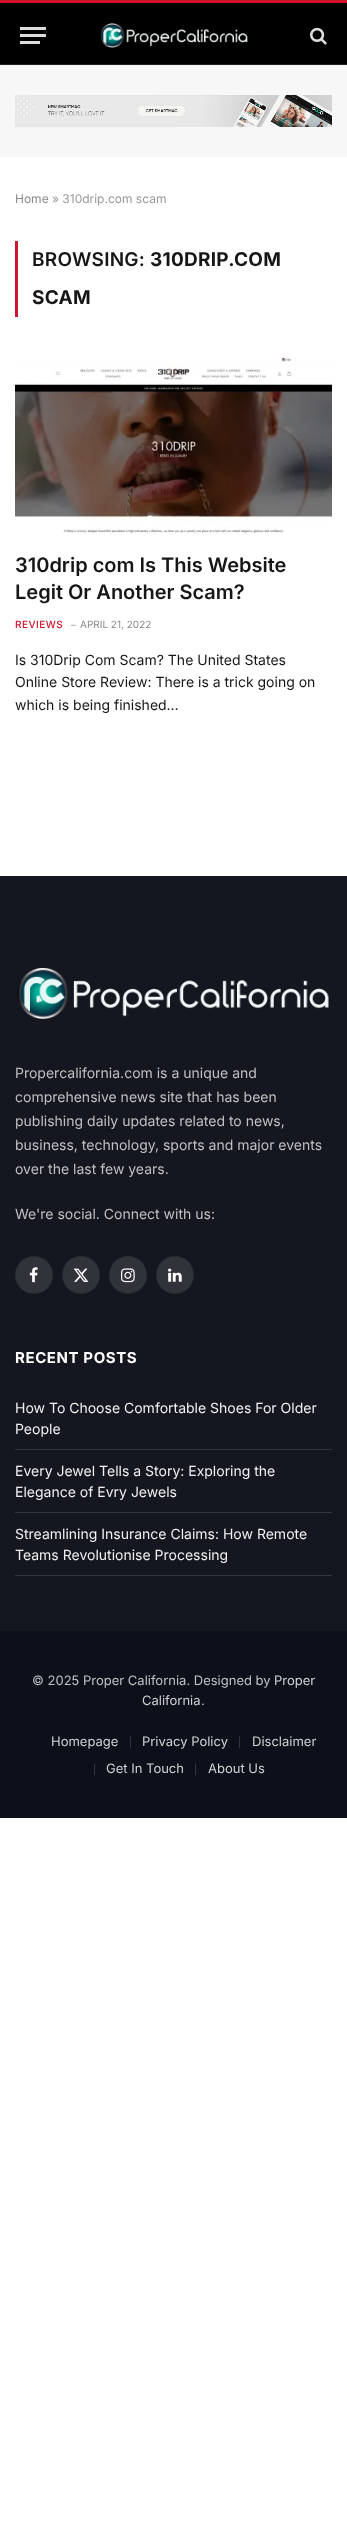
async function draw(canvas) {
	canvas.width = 347;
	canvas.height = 2540;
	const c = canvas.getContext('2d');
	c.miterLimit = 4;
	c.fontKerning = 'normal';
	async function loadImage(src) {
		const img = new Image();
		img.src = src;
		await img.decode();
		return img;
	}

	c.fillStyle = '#fff';
	c.fillRect(0, 0, 347, 2540);
	for (const [x, y, w, h, color] of [
		[0, 3, 347, 61, '#000'],
		[0, 0, 347, 3, '#d1142e'],
		[0, 64, 347, 1, '#222'],
		[20, 41, 20, 3, '#ddd'],
		[20, 27, 26, 3, '#ddd'],
		[20, 34, 26, 3, '#ddd'],
	]) {
		c.fillStyle = color;
		c.fillRect(x, y, w, h);
	}
	c.drawImage(await loadImage('img1.png'), 100, 23, 148, 25);
	c.drawImage(await loadImage('img2.png'), 310, 27, 17, 18);
	c.fillStyle = '#f7f7f7';
	c.fillRect(0, 65, 347, 92);
	c.drawImage(await loadImage('img3.png'), 15, 95, 317, 32);
	c.font = '12px Inter';
	c.fillStyle = '#8a8a8a';
	c.fillText('Home', 15, 203);
	c.fillStyle = '#999';
	c.fillText('» 310drip.com scam', 52, 203);
	c.fillStyle = '#d1142e';
	c.fillRect(15, 241, 3, 76);
	c.letterSpacing = '0.25px';
	c.font = '600 19px Inter';
	c.fillStyle = '#161616';
	c.fillText('BROWSING:', 32, 266);
	c.font = 'bold 19px Inter';
	c.fillText('310DRIP.COM', 150, 266);
	c.fillText('SCAM', 32, 304);
	c.drawImage(await loadImage('img4.png'), 15, 357, 317, 177);
	c.letterSpacing = '0px';
	c.font = '600 20px Inter';
	c.fillText('310drip com Is This Website', 15, 572);
	c.fillText('Legit Or Another Scam?', 15, 599);
	c.letterSpacing = '0.5px';
	c.font = '500 10px Inter';
	c.fillStyle = '#d1142e';
	c.fillText('REVIEWS', 15, 628);
	c.letterSpacing = '0px';
	c.font = '9px Inter';
	c.fillStyle = '#8a8a8a';
	c.fillText('–', 71, 628);
	c.font = '10px Inter';
	c.fillText('APRIL 21, 2022', 80, 628);
	c.font = '14px Inter';
	c.fillStyle = '#161616';
	for (const [text, x, y] of [
		['Is 310Drip Com Scam? The United States', 15, 665],
		['Online Store Review: There is a trick going on', 15, 687],
		['which is being finished…', 15, 710],
	]) {
		c.fillText(text, x, y);
	}
	c.fillStyle = '#14171f';
	c.fillRect(0, 876, 347, 755);
	c.drawImage(await loadImage('img5.png'), 17, 968, 312, 51);
	c.fillStyle = '#c0c0c0';
	for (const [text, x, y] of [
		['Propercalifornia.com is a unique and', 15, 1078],
		['comprehensive news site that has been', 15, 1102],
		['publishing daily updates related to news,', 15, 1126],
		['business, technology, sports and major events', 15, 1150],
		['over the last few years.', 15, 1174],
		['We\'re social. Connect with us:', 15, 1219],
	]) {
		c.fillText(text, x, y);
	}
	c.fillStyle = '#30333a';
	c.beginPath();
	c.arc(34, 1275, 19, 0, 2 * Math.PI);
	c.fill();
	c.beginPath();
	c.arc(34, 1275, 18.5, 0, 2 * Math.PI);
	c.strokeStyle = '#00000017';
	c.stroke();
	c.drawImage(await loadImage('img6.png'), 29, 1267, 9, 16);
	c.beginPath();
	c.arc(81, 1275, 19, 0, 2 * Math.PI);
	c.fill();
	c.beginPath();
	c.arc(81, 1275, 18.5, 0, 2 * Math.PI);
	c.stroke();
	c.drawImage(await loadImage('img7.png'), 73, 1268, 16, 14);
	c.beginPath();
	c.arc(128, 1275, 19, 0, 2 * Math.PI);
	c.fill();
	c.beginPath();
	c.arc(128, 1275, 18.5, 0, 2 * Math.PI);
	c.stroke();
	c.drawImage(await loadImage('img8.png'), 121, 1268, 14, 15);
	c.beginPath();
	c.arc(175, 1275, 19, 0, 2 * Math.PI);
	c.fill();
	c.beginPath();
	c.arc(175, 1275, 18.5, 0, 2 * Math.PI);
	c.stroke();
	c.drawImage(await loadImage('img9.png'), 168, 1268, 14, 14);
	c.letterSpacing = '0.6px';
	c.font = 'bold 15px Inter';
	c.fillStyle = '#fff';
	c.fillText('RECENT POSTS', 15, 1363);
	c.fillStyle = '#33353c';
	c.fillRect(15, 1449, 317, 1);
	c.letterSpacing = '0px';
	c.font = '14px Inter';
	c.fillStyle = '#f0f0f0';
	c.fillText('How To Choose Comfortable Shoes For Older', 15, 1413);
	c.fillText('People', 15, 1434);
	c.fillStyle = '#33353c';
	c.fillRect(15, 1512, 317, 1);
	c.fillStyle = '#f0f0f0';
	c.fillText('Every Jewel Tells a Story: Exploring the', 15, 1476);
	c.fillText('Elegance of Evry Jewels', 15, 1497);
	c.fillStyle = '#33353c';
	c.fillRect(15, 1575, 317, 1);
	c.fillStyle = '#f0f0f0';
	c.fillText('Streamlining Insurance Claims: How Remote', 15, 1539);
	c.fillText('Teams Revolutionise Processing', 15, 1560);
	c.fillStyle = '#0b101b';
	c.fillRect(0, 1631, 347, 187);
	c.font = '13px Inter';
	c.fillStyle = '#c0c0c0';
	c.fillText('© 2025 Proper California. Designed by', 32, 1685);
	c.fillStyle = '#d1d1d1';
	c.fillText('Proper', 274, 1685);
	c.fillText('California', 142, 1705);
	c.fillStyle = '#c0c0c0';
	c.fillText('.', 201, 1705);
	c.fillStyle = '#d1d1d1';
	c.fillText('Homepage', 51, 1746);
	c.font = '10px Inter';
	c.fillStyle = '#40434b';
	c.fillText('|', 129, 1746);
	c.font = '13px Inter';
	c.fillStyle = '#d1d1d1';
	c.fillText('Privacy Policy', 142, 1746);
	c.font = '10px Inter';
	c.fillStyle = '#40434b';
	c.fillText('|', 238, 1746);
	c.font = '13px Inter';
	c.fillStyle = '#d1d1d1';
	c.fillText('Disclaimer', 252, 1746);
	c.font = '10px Inter';
	c.fillStyle = '#40434b';
	c.fillText('|', 93, 1773);
	c.font = '13px Inter';
	c.fillStyle = '#d1d1d1';
	c.fillText('Get In Touch', 106, 1773);
	c.font = '10px Inter';
	c.fillStyle = '#40434b';
	c.fillText('|', 194, 1773);
	c.font = '13px Inter';
	c.fillStyle = '#d1d1d1';
	c.fillText('About Us', 208, 1773);
}

draw(document.querySelector('canvas'));
